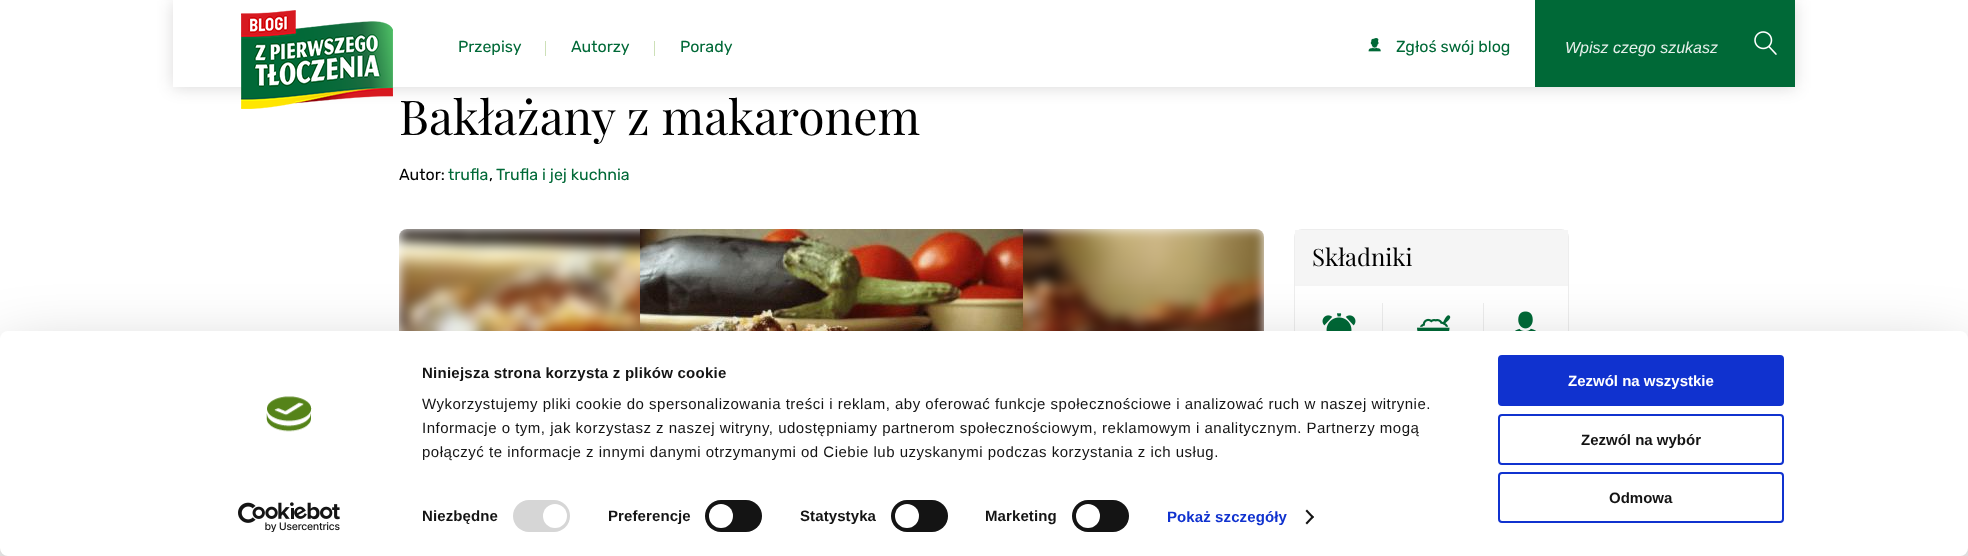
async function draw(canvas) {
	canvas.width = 1968;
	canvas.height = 556;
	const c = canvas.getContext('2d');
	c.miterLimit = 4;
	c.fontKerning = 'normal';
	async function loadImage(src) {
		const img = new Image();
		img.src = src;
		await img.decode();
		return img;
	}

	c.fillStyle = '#fff';
	c.fillRect(0, 0, 1968, 556);
	c.save();
	c.beginPath();
	c.moveTo(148, 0);
	c.lineTo(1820, 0);
	c.lineTo(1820, 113);
	c.lineTo(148, 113);
	c.closePath();
	c.moveTo(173, 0);
	c.lineTo(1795, 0);
	c.lineTo(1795, 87);
	c.lineTo(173, 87);
	c.closePath();
	c.clip('evenodd');
	c.fillStyle = '#231f202b';
	c.filter = 'blur(8px)';
	c.beginPath();
	c.rect(173, 1, 1622, 87);
	c.fill();
	c.filter = 'none';
	c.restore();
	c.drawImage(await loadImage('img1.png'), 241, 10, 152, 99);
	c.font = '16px Rubik';
	c.fillStyle = '#006937';
	c.fillText('Przepisy', 458, 52);
	c.fillStyle = '#cde0b8';
	c.fillRect(545, 41, 1, 15);
	c.fillStyle = '#006937';
	c.fillText('Autorzy', 571, 52);
	c.fillStyle = '#cde0b8';
	c.fillRect(654, 41, 1, 15);
	c.fillStyle = '#006937';
	c.fillText('Porady', 680, 52);
	c.drawImage(await loadImage('img2.png'), 1368, 38, 13, 14);
	c.fillText('Zgłoś swój blog', 1396, 52);
	c.fillRect(1535, 0, 260, 87);
	c.drawImage(await loadImage('img3.png'), 1754, 31, 23, 24);
	c.font = 'italic 16px Liberation Sans';
	c.fillStyle = '#e6f0eb';
	c.fillText('Wpisz czego szukasz', 1565, 53);
	c.font = '48px Playfair Display';
	c.fillStyle = '#000';
	c.fillText('Bakłażany z makaronem', 399, 135);
	c.font = '16px Rubik';
	c.fillText('Autor:', 399, 180);
	c.fillStyle = '#006937';
	c.fillText('trufla', 448, 180);
	c.fillStyle = '#000';
	c.fillText(',', 489, 180);
	c.fillStyle = '#006937';
	c.fillText('Trufla i jej kuchnia', 496, 180);
	c.drawImage(await loadImage('img4.png'), 399, 229, 865, 102);
	c.drawImage(await loadImage('img5.png'), 640, 229, 383, 102);
	c.beginPath();
	c.roundRect(1294.5, 229.5, 274, 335, 7.5);
	c.strokeStyle = '#ededed';
	c.stroke();
	c.fillStyle = '#f5f5f5';
	c.fillRect(1295, 230, 273, 56);
	c.font = '24px Playfair Display';
	c.fillStyle = '#000';
	c.fillText('Składniki', 1312, 266);
	c.fillStyle = '#ededed';
	c.fillRect(1382, 303, 1, 28);
	c.drawImage(await loadImage('img6.png'), 1322, 313, 34, 18);
	c.fillRect(1483, 303, 1, 28);
	c.drawImage(await loadImage('img7.png'), 1417, 315, 34, 16);
	c.drawImage(await loadImage('img8.png'), 1515, 311, 21, 20);
	c.fillStyle = '#0000004d';
	c.filter = 'blur(35px)';
	c.beginPath();
	c.roundRect(0, 361, 1968, 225, 8);
	c.fill();
	c.filter = 'none';
	c.fillStyle = '#fff';
	c.beginPath();
	c.roundRect(0, 331, 1968, 225, 8);
	c.fill();
	c.drawImage(await loadImage('img9.png'), 266, 396, 46, 36);
	c.drawImage(await loadImage('img10.png'), 238, 502, 102, 30);
	c.letterSpacing = '0.25px';
	c.font = 'bold 15px Liberation Sans';
	c.fillStyle = '#141414';
	c.fillText('Niniejsza strona korzysta z plików cookie', 422, 378);
	c.letterSpacing = '0.5px';
	c.font = '15px Liberation Sans';
	for (const [text, x, y] of [
		['Wykorzystujemy pliki cookie do spersonalizowania treści i reklam, aby oferować funkcje społecznościowe i analizować ruch w naszej witrynie.', 422, 409],
		['Informacje o tym, jak korzystasz z naszej witryny, udostępniamy partnerom społecznościowym, reklamowym i analitycznym. Partnerzy mogą', 422, 433],
		['połączyć te informacje z innymi danymi otrzymanymi od Ciebie lub uzyskanymi podczas korzystania z ich usług.', 422, 457],
	]) {
		c.fillText(text, x, y);
	}
	c.letterSpacing = '0.1px';
	c.font = 'bold 15px Liberation Sans';
	c.fillText('Niezbędne', 422, 521);
	c.fillStyle = '#d6d6d6';
	c.beginPath();
	c.roundRect(513, 500, 57, 32, 16);
	c.fill();
	c.fillStyle = '#fff';
	c.beginPath();
	c.arc(555, 516, 12, 0, 2 * Math.PI);
	c.fill();
	c.fillStyle = '#141414';
	c.fillText('Preferencje', 608, 521);
	c.beginPath();
	c.roundRect(705, 500, 57, 32, 16);
	c.fill();
	c.fillStyle = '#fff';
	c.beginPath();
	c.arc(721, 516, 12, 0, 2 * Math.PI);
	c.fill();
	c.fillStyle = '#141414';
	c.fillText('Statystyka', 800, 521);
	c.beginPath();
	c.roundRect(891, 500, 57, 32, 16);
	c.fill();
	c.fillStyle = '#fff';
	c.beginPath();
	c.arc(907, 516, 12, 0, 2 * Math.PI);
	c.fill();
	c.fillStyle = '#141414';
	c.fillText('Marketing', 985, 521);
	c.beginPath();
	c.roundRect(1072, 500, 57, 32, 16);
	c.fill();
	c.fillStyle = '#fff';
	c.beginPath();
	c.arc(1088, 516, 12, 0, 2 * Math.PI);
	c.fill();
	c.fillStyle = '#1032cf';
	c.fillText('Pokaż szczegóły', 1167, 522);
	c.fillStyle = '#141414';
	c.beginPath();
	c.moveTo(1307, 509.5);
	c.lineTo(1314, 517);
	c.lineTo(1312.5, 518.5);
	c.lineTo(1305.5, 511);
	c.closePath();
	c.fill();
	c.beginPath();
	c.moveTo(1312.5, 515.5);
	c.lineTo(1314, 517);
	c.lineTo(1307, 524.5);
	c.lineTo(1305.5, 523);
	c.closePath();
	c.fill();
	c.fillStyle = '#1032cf';
	c.beginPath();
	c.roundRect(1499, 356, 284, 49, 3);
	c.fill();
	c.strokeStyle = '#1032cf';
	c.lineWidth = 2;
	c.stroke();
	c.letterSpacing = '0px';
	c.fillStyle = '#fff';
	c.fillText('Zezwól na wszystkie', 1568, 386);
	c.beginPath();
	c.roundRect(1499, 415, 284, 49, 3);
	c.stroke();
	c.fillStyle = '#141414';
	c.fillText('Zezwól na wybór', 1581, 445);
	c.beginPath();
	c.roundRect(1499, 473, 284, 49, 3);
	c.stroke();
	c.fillText('Odmowa', 1609, 503);
}

draw(document.querySelector('canvas'));
